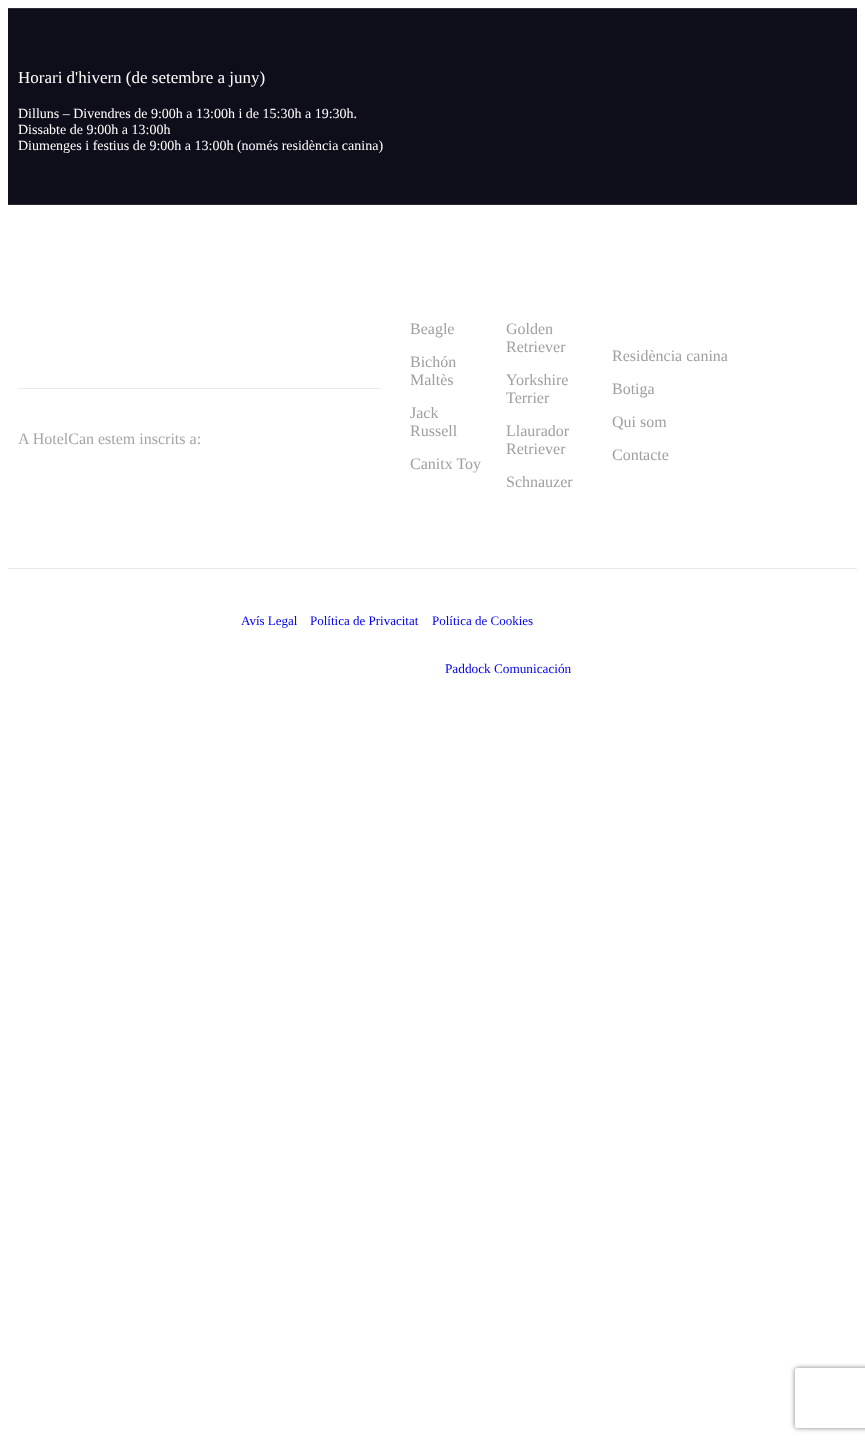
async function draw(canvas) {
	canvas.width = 865;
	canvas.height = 1442;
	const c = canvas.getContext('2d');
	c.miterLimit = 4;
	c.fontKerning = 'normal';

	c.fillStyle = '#fff';
	c.fillRect(0, 0, 865, 1442);
	for (const [x, y, w, h, color] of [
		[8, 9, 849, 195, '#0e0d1a'],
		[8, 8, 849, 1, '#2c2c36'],
		[8, 204, 849, 1, '#2c2c36'],
	]) {
		c.fillStyle = color;
		c.fillRect(x, y, w, h);
	}
	c.font = '17px Liberation Serif';
	c.fillStyle = '#fff';
	c.fillText('Horari d\'hivern (de setembre a juny)', 18, 83);
	c.font = '14px Liberation Serif';
	for (const [text, x, y] of [
		['Dilluns – Divendres de 9:00h a 13:00h i de 15:30h a 19:30h.', 18, 118],
		['Dissabte de 9:00h a 13:00h', 18, 134],
		['Diumenges i festius de 9:00h a 13:00h (només residència canina)', 18, 150],
	]) {
		c.fillText(text, x, y);
	}
	c.fillStyle = '#ebebeb';
	c.fillRect(18, 388, 362, 1);
	c.font = '16px Liberation Serif';
	c.fillStyle = '#a5a5a5';
	c.fillText('A HotelCan estem inscrits a:', 18, 444);
	c.fillStyle = '#9f9f9f';
	for (const [text, x, y] of [
		['Beagle', 410, 334],
		['Bichón', 410, 367],
		['Maltès', 410, 385],
		['Jack', 410, 418],
		['Russell', 410, 436],
		['Canitx Toy', 410, 469],
		['Golden', 506, 334],
		['Retriever', 506, 352],
		['Yorkshire', 506, 385],
		['Terrier', 506, 403],
		['Llaurador', 506, 436],
		['Retriever', 506, 454],
		['Schnauzer', 506, 487],
		['Residència canina', 612, 361],
		['Botiga', 612, 394],
		['Qui som', 612, 427],
		['Contacte', 612, 460],
	]) {
		c.fillText(text, x, y);
	}
	c.fillStyle = '#ebebeb';
	c.fillRect(8, 568, 849, 1);
	c.font = '13px Liberation Serif';
	c.fillStyle = '#00e';
	for (const [text, x, y] of [
		['Avís Legal', 241, 625],
		['Política de Privacitat', 310, 625],
		['Política de Cookies', 432, 625],
	]) {
		c.fillText(text, x, y);
	}
	c.font = '13.25px Liberation Serif';
	c.fillText('Paddock Comunicación', 445, 673);
	c.save();
	c.beginPath();
	c.moveTo(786, 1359);
	c.lineTo(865, 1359);
	c.lineTo(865, 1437);
	c.lineTo(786, 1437);
	c.closePath();
	c.moveTo(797, 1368);
	c.lineTo(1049, 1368);
	c.bezierCurveTo(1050, 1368, 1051, 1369, 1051, 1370);
	c.lineTo(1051, 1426);
	c.bezierCurveTo(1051, 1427, 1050, 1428, 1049, 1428);
	c.lineTo(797, 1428);
	c.bezierCurveTo(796, 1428, 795, 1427, 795, 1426);
	c.lineTo(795, 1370);
	c.bezierCurveTo(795, 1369, 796, 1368, 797, 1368);
	c.closePath();
	c.clip('evenodd');
	c.fillStyle = '#808080';
	c.filter = 'blur(2.5px)';
	c.beginPath();
	c.roundRect(795, 1368, 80, 60, 2);
	c.fill();
	c.filter = 'none';
	c.restore();
}

draw(document.querySelector('canvas'));
